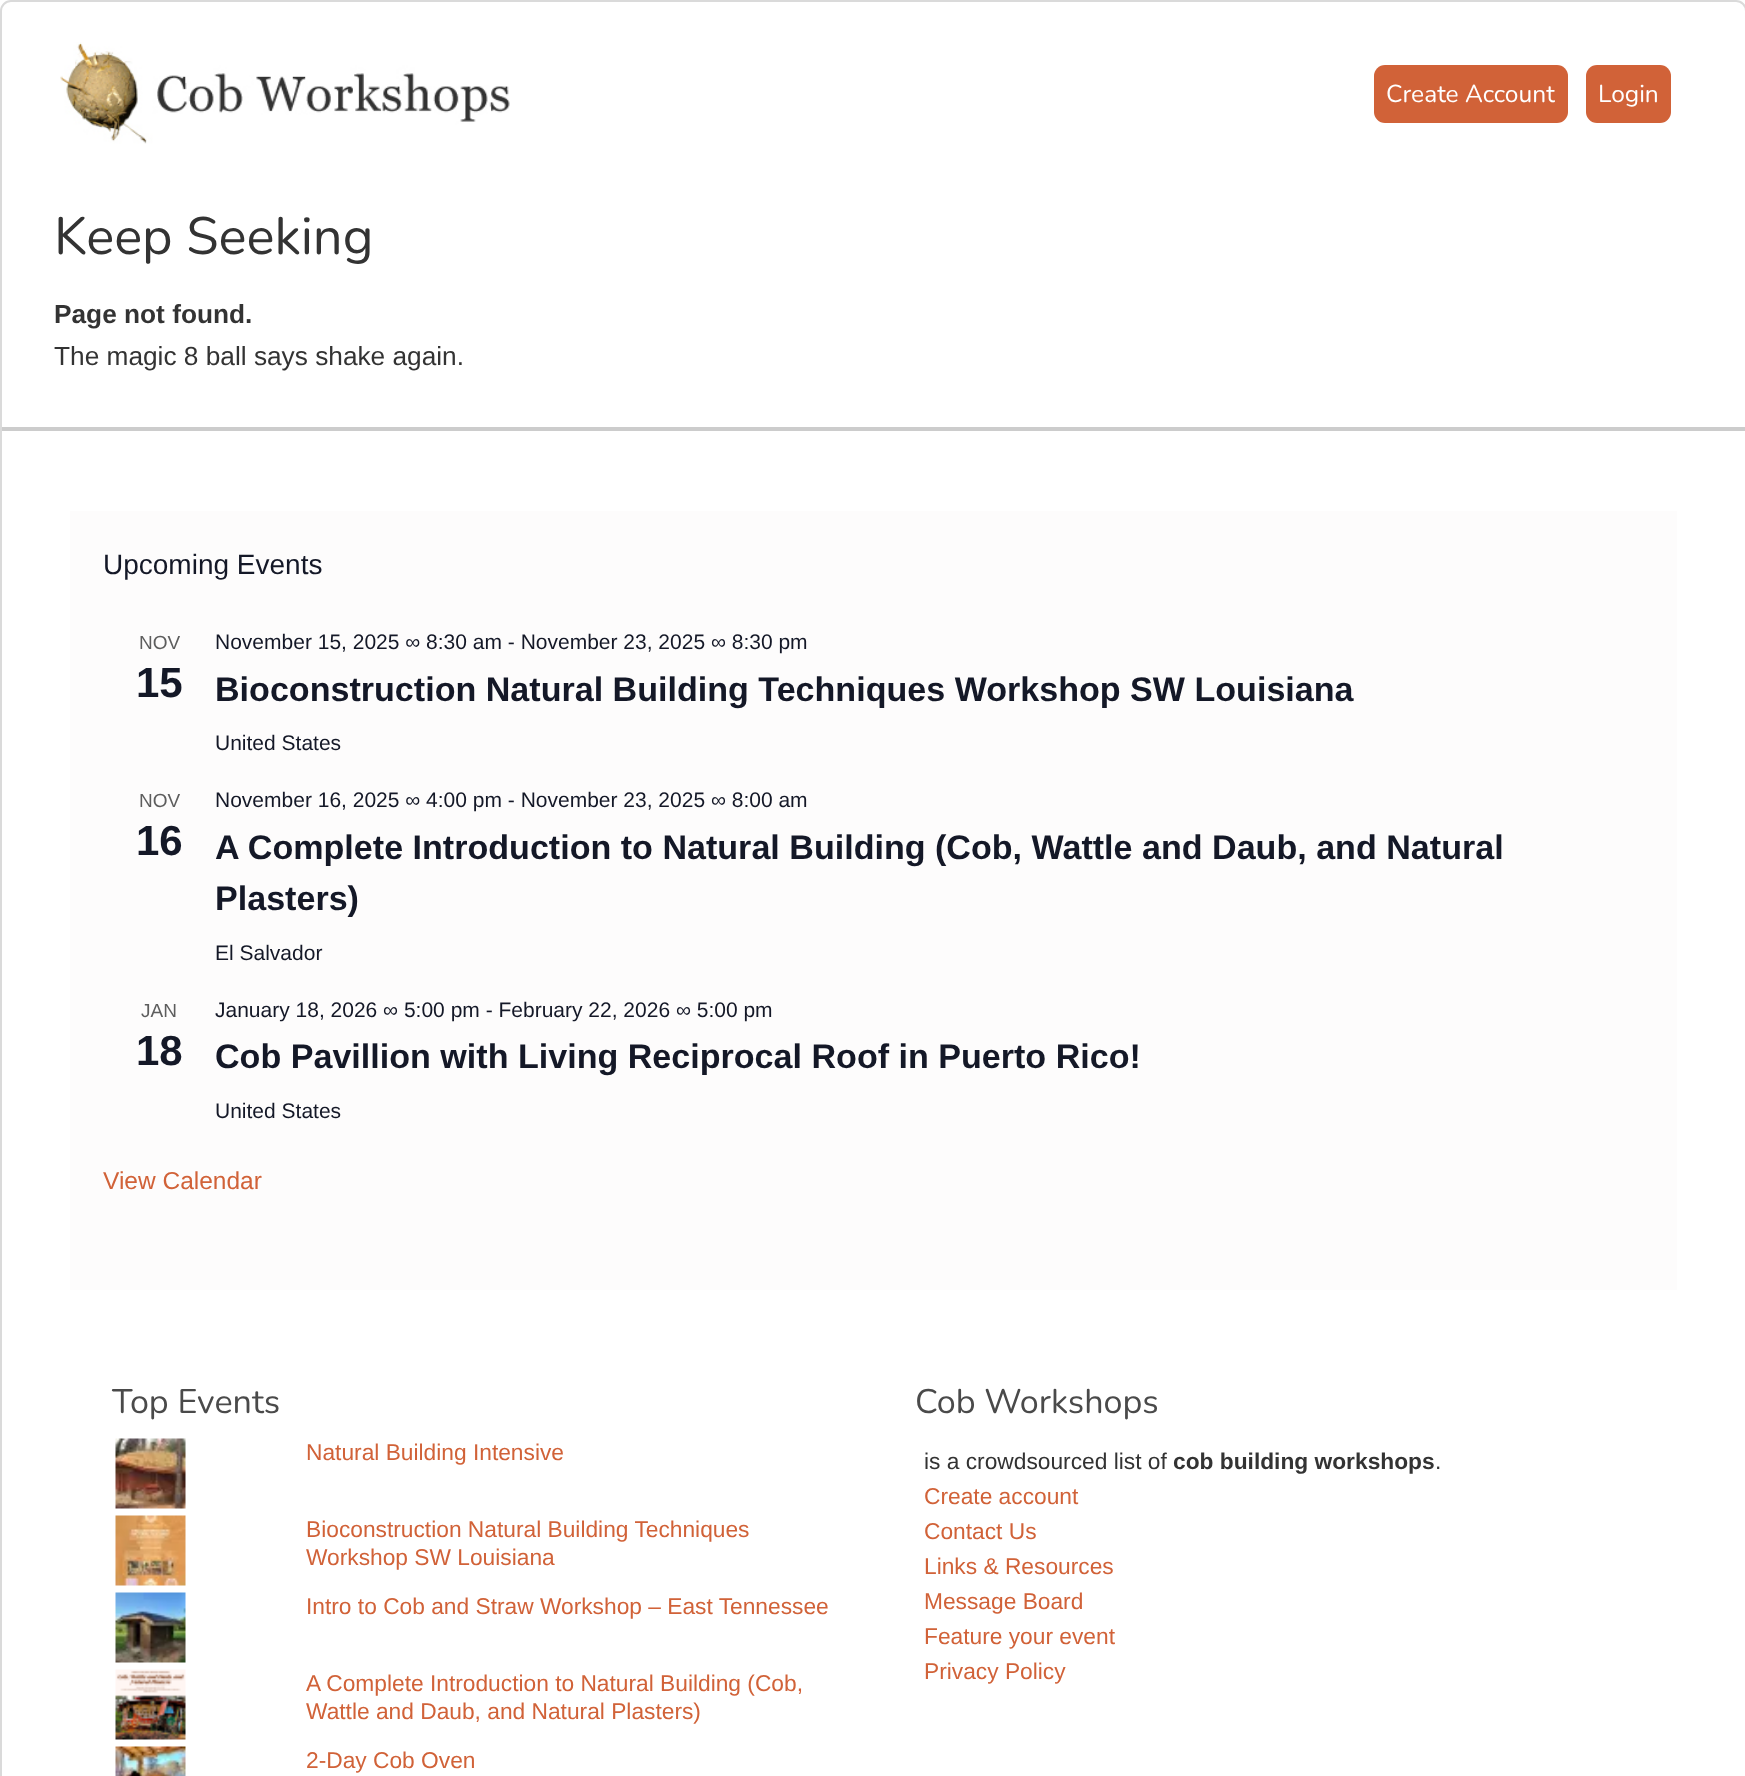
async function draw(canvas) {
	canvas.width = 1745;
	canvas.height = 1776;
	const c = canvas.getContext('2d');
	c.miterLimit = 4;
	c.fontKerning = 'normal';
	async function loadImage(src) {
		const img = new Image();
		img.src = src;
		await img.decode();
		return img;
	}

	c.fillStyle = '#fff';
	c.fillRect(0, 0, 1745, 1776);
	c.beginPath();
	c.roundRect(1, 1, 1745, 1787, 10);
	c.strokeStyle = '#dadada';
	c.lineWidth = 2;
	c.stroke();
	c.drawImage(await loadImage('img1.png'), 60, 42, 450, 102);
	c.fillStyle = '#d16238';
	c.beginPath();
	c.roundRect(1374, 65, 194, 58, 11);
	c.fill();
	c.font = '24.5px Nunito';
	c.fillStyle = '#fff';
	c.fillText('Create Account', 1386, 102);
	c.fillStyle = '#d16238';
	c.beginPath();
	c.roundRect(1586, 65, 85, 58, 11);
	c.fill();
	c.fillStyle = '#fff';
	c.fillText('Login', 1598, 102);
	c.font = '52.5px Nunito';
	c.fillStyle = '#333';
	c.fillText('Keep Seeking', 54, 254);
	c.font = 'bold 26.25px Liberation Sans';
	c.fillText('Page not found.', 54, 323);
	c.font = '26.25px Liberation Sans';
	c.fillText('The magic 8 ball says shake again.', 54, 365);
	c.fillStyle = '#ccc';
	c.fillRect(2, 427, 1743, 4);
	c.fillStyle = '#fdfcfc';
	c.fillRect(70, 511, 1607, 779);
	c.font = '28px Liberation Sans';
	c.fillStyle = '#141827';
	c.fillText('Upcoming Events', 103, 574);
	c.font = '19px Liberation Sans';
	c.fillStyle = '#5d5d5d';
	c.fillText('NOV', 139, 649);
	c.font = 'bold 42px Liberation Sans';
	c.fillStyle = '#141827';
	c.fillText('15', 136, 697);
	c.font = '21px Liberation Sans';
	c.fillText('November 15, 2025 ∞ 8:30 am - November 23, 2025 ∞ 8:30 pm', 215, 649);
	c.font = 'bold 34.1px Liberation Sans';
	c.fillText('Bioconstruction Natural Building Techniques Workshop SW Louisiana', 215, 701);
	c.font = '21px Liberation Sans';
	c.fillText('United States', 215, 750);
	c.font = '19px Liberation Sans';
	c.fillStyle = '#5d5d5d';
	c.fillText('NOV', 139, 807);
	c.font = 'bold 42px Liberation Sans';
	c.fillStyle = '#141827';
	c.fillText('16', 136, 855);
	c.font = '21px Liberation Sans';
	c.fillText('November 16, 2025 ∞ 4:00 pm - November 23, 2025 ∞ 8:00 am', 215, 807);
	c.font = 'bold 34.1px Liberation Sans';
	c.fillText('A Complete Introduction to Natural Building (Cob, Wattle and Daub, and Natural', 215, 859);
	c.fillText('Plasters)', 215, 910);
	c.font = '21px Liberation Sans';
	c.fillText('El Salvador', 215, 960);
	c.font = '19px Liberation Sans';
	c.fillStyle = '#5d5d5d';
	c.fillText('JAN', 141, 1017);
	c.font = 'bold 42px Liberation Sans';
	c.fillStyle = '#141827';
	c.fillText('18', 136, 1065);
	c.font = '21px Liberation Sans';
	c.fillText('January 18, 2026 ∞ 5:00 pm - February 22, 2026 ∞ 5:00 pm', 215, 1017);
	c.font = 'bold 34.1px Liberation Sans';
	c.fillText('Cob Pavillion with Living Reciprocal Roof in Puerto Rico!', 215, 1068);
	c.font = '21px Liberation Sans';
	c.fillText('United States', 215, 1118);
	c.font = '24.5px Liberation Sans';
	c.fillStyle = '#d16238';
	c.fillText('View Calendar', 103, 1189);
	c.font = '34.1px Nunito';
	c.fillStyle = '#4a4a4a';
	c.fillText('Top Events', 112, 1413);
	c.drawImage(await loadImage('img2.png'), 115, 1438, 71, 71);
	c.font = '22.75px Liberation Sans';
	c.fillStyle = '#d16238';
	c.fillText('Natural Building Intensive', 306, 1460);
	c.drawImage(await loadImage('img3.png'), 115, 1515, 71, 71);
	c.fillText('Bioconstruction Natural Building Techniques', 306, 1537);
	c.fillText('Workshop SW Louisiana', 306, 1565);
	c.drawImage(await loadImage('img4.png'), 115, 1592, 71, 71);
	c.fillText('Intro to Cob and Straw Workshop – East Tennessee', 306, 1614);
	c.drawImage(await loadImage('img5.png'), 115, 1669, 71, 71);
	c.fillText('A Complete Introduction to Natural Building (Cob,', 306, 1691);
	c.fillText('Wattle and Daub, and Natural Plasters)', 306, 1719);
	c.drawImage(await loadImage('img6.png'), 115, 1746, 71, 30);
	c.fillText('2-Day Cob Oven', 306, 1768);
	c.font = '34.1px Nunito';
	c.fillStyle = '#4a4a4a';
	c.fillText('Cob Workshops', 915, 1413);
	c.font = '22.75px Liberation Sans';
	c.fillStyle = '#333';
	c.fillText('is a crowdsourced list of', 924, 1469);
	c.font = 'bold 22.75px Liberation Sans';
	c.fillText('cob building workshops', 1173, 1469);
	c.font = '22.75px Liberation Sans';
	c.fillText('.', 1435, 1469);
	c.fillStyle = '#d16238';
	for (const [text, x, y] of [
		['Create account', 924, 1504],
		['Contact Us', 924, 1539],
		['Links & Resources', 924, 1574],
		['Message Board', 924, 1609],
		['Feature your event', 924, 1644],
		['Privacy Policy', 924, 1679],
	]) {
		c.fillText(text, x, y);
	}
}

draw(document.querySelector('canvas'));
